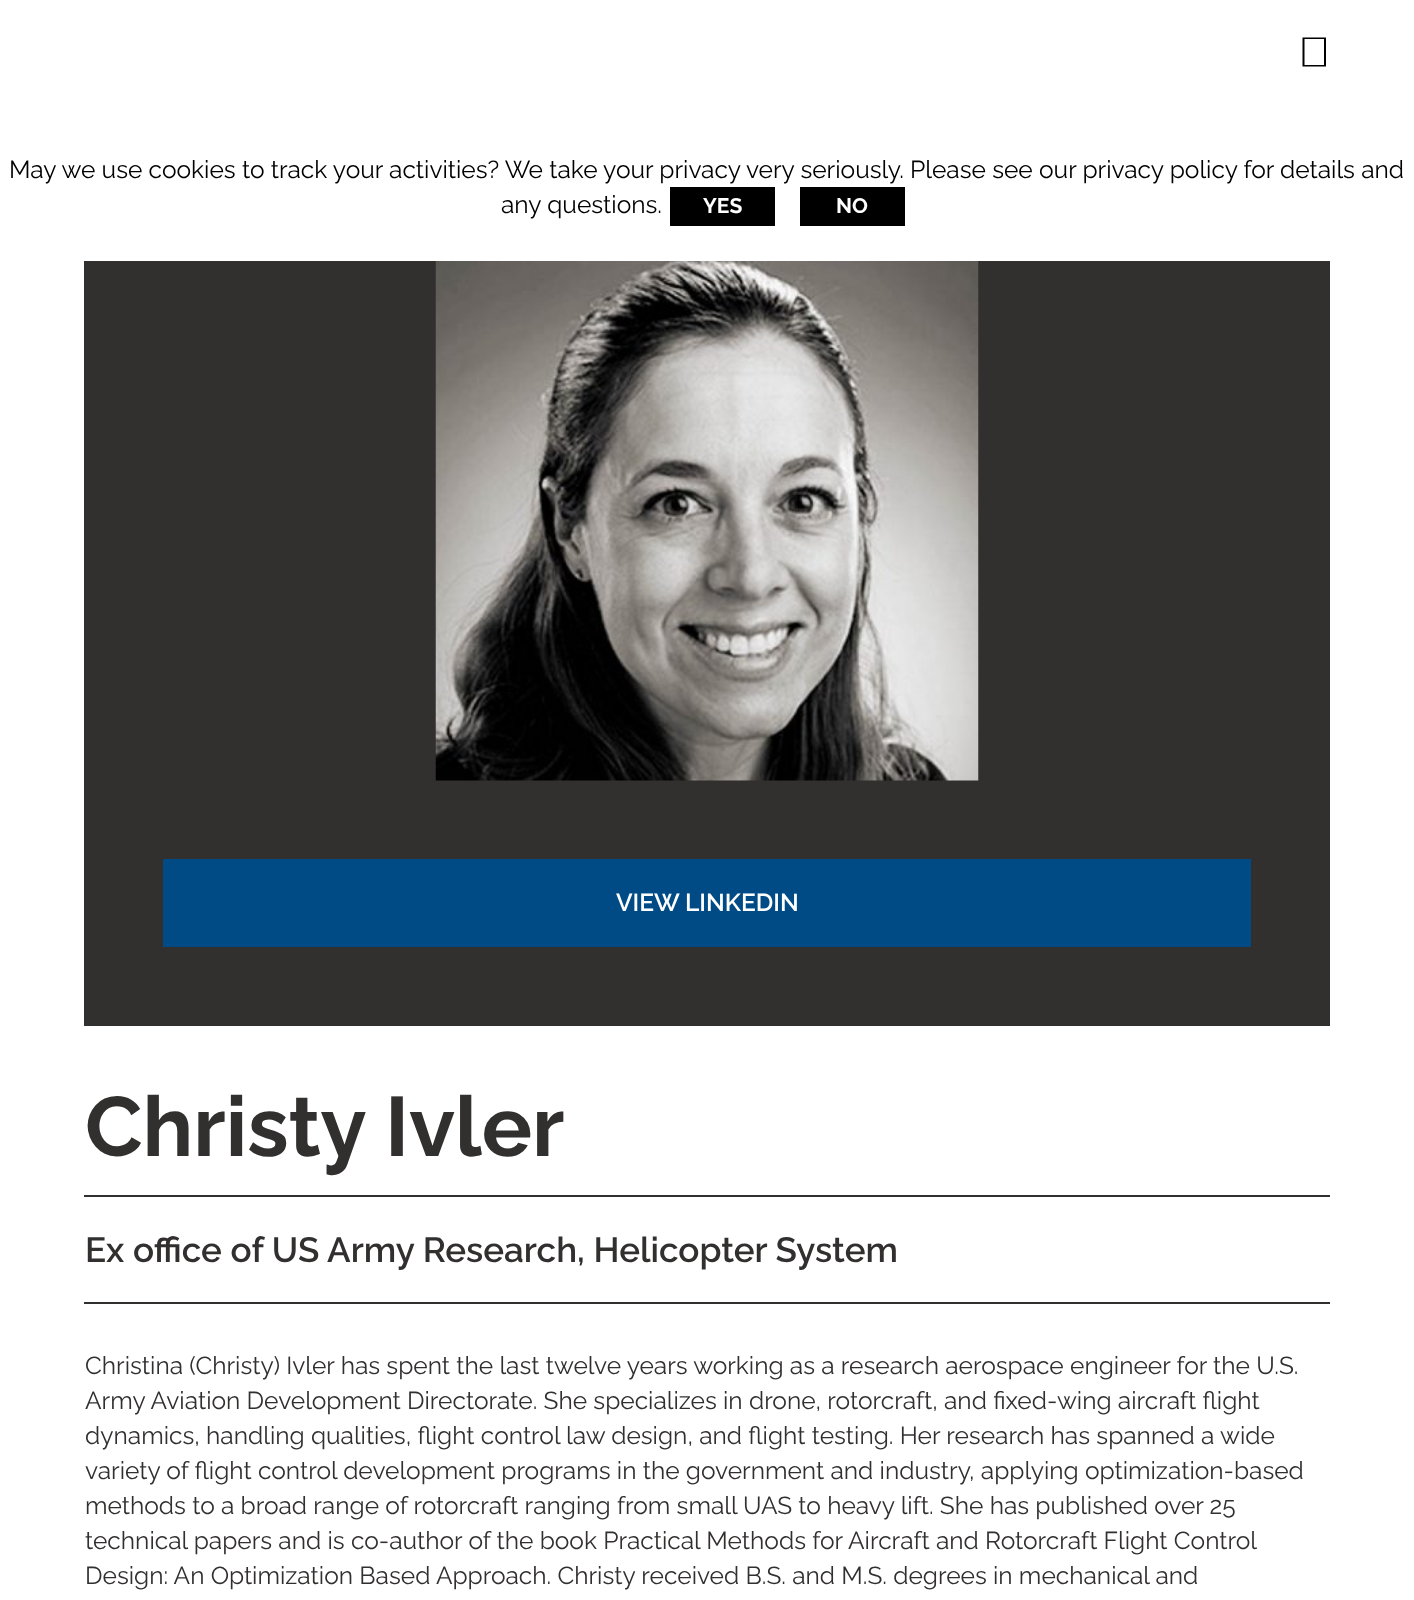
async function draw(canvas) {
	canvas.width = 1414;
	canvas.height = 1600;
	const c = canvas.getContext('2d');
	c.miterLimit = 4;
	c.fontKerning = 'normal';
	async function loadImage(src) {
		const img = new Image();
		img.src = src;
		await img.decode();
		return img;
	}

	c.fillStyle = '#fff';
	c.fillRect(0, 0, 1414, 1600);
	c.fillStyle = '#000';
	c.beginPath();
	c.moveTo(1302.5, 37.5);
	c.lineTo(1326, 37.5);
	c.lineTo(1326, 66.5);
	c.lineTo(1302.5, 66.5);
	c.closePath();
	c.moveTo(1304.5, 39);
	c.lineTo(1304.5, 65);
	c.lineTo(1324, 65);
	c.lineTo(1324, 39);
	c.closePath();
	c.fill();
	c.font = '24.5px Raleway';
	c.fillText('May we use cookies to track your activities? We take your privacy very seriously. Please see our privacy policy for details and', 9, 178);
	c.fillText('any questions.', 501, 213);
	c.fillRect(670, 187, 105, 39);
	c.font = 'bold 21px Raleway';
	c.fillStyle = '#fff';
	c.fillText('YES', 703, 213);
	c.fillStyle = '#000';
	c.fillRect(800, 187, 105, 39);
	c.fillStyle = '#fff';
	c.fillText('NO', 836, 213);
	c.fillStyle = '#322f2f';
	c.fillRect(84, 261, 1246, 765);
	c.drawImage(await loadImage('img1.png'), 435, 261, 544, 520);
	c.fillStyle = '#004b86';
	c.fillRect(163, 859, 1088, 88);
	c.font = '600 24.5px Raleway';
	c.fillStyle = '#fff';
	c.fillText('VIEW LINKEDIN', 616, 911);
	c.font = 'bold 84px Raleway';
	c.fillStyle = '#322f2f';
	c.fillText('Christy Ivler', 85, 1156);
	c.fillRect(84, 1195, 1246, 2);
	c.fillRect(84, 1302, 1246, 2);
	c.font = '600 35px Raleway';
	c.fillText('Ex office of US Army Research, Helicopter System', 85, 1262);
	c.font = '24.5px Raleway';
	for (const [text, x, y] of [
		['Christina (Christy) Ivler has spent the last twelve years working as a research aerospace engineer for the U.S.', 85, 1374],
		['Army Aviation Development Directorate. She specializes in drone, rotorcraft, and fixed-wing aircraft flight', 85, 1409],
		['dynamics, handling qualities, flight control law design, and flight testing. Her research has spanned a wide', 85, 1444],
		['variety of flight control development programs in the government and industry, applying optimization-based', 85, 1479],
		['methods to a broad range of rotorcraft ranging from small UAS to heavy lift. She has published over 25', 85, 1514],
		['technical papers and is co-author of the book Practical Methods for Aircraft and Rotorcraft Flight Control', 85, 1549],
		['Design: An Optimization Based Approach. Christy received B.S. and M.S. degrees in mechanical and', 85, 1584],
	]) {
		c.fillText(text, x, y);
	}
}

draw(document.querySelector('canvas'));
